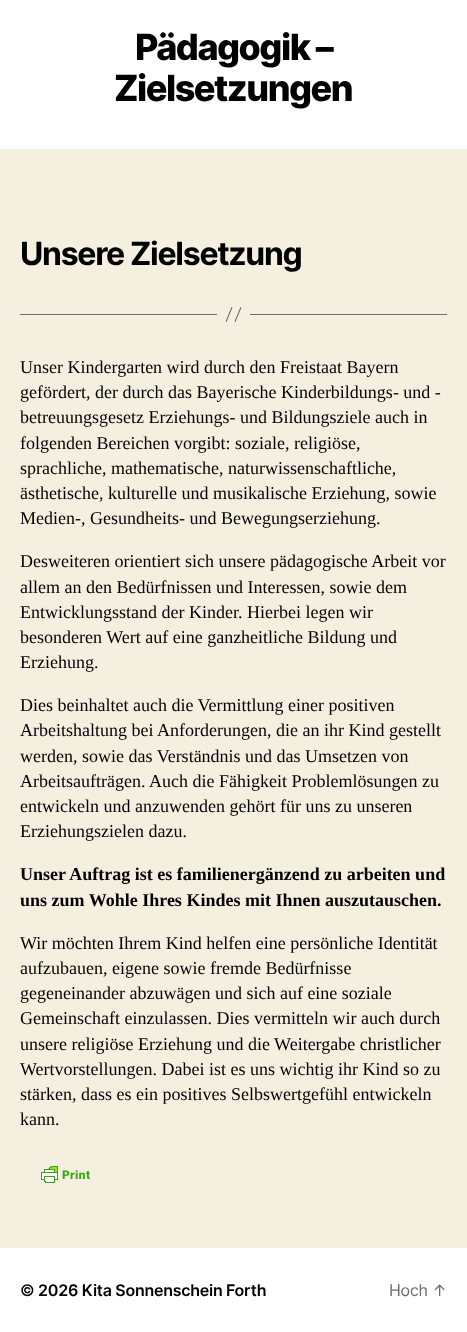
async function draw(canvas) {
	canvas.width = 467;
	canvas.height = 1332;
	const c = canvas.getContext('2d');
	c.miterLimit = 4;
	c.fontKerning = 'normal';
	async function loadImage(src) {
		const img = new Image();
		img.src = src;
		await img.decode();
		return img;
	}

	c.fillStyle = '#f5efe0';
	c.fillRect(0, 0, 467, 1332);
	c.fillStyle = '#fff';
	c.fillRect(0, 0, 467, 149);
	c.letterSpacing = '-1.5px';
	c.font = '800 36px Inter';
	c.fillStyle = '#000';
	c.fillText('Pädagogik –', 135, 60);
	c.fillText('Zielsetzungen', 114, 101);
	c.letterSpacing = '-1.3px';
	c.font = 'bold 32px Inter';
	c.fillText('Unsere Zielsetzung', 20, 265);
	c.fillStyle = '#6d6d6d';
	c.fillRect(250, 314, 197, 1);
	c.fillRect(20, 314, 197, 1);
	c.beginPath();
	c.moveTo(231.5, 307);
	c.lineTo(232.5, 307.5);
	c.lineTo(226.5, 322);
	c.lineTo(225.5, 321.5);
	c.closePath();
	c.moveTo(240.5, 307);
	c.lineTo(241.5, 307.5);
	c.lineTo(235.5, 322);
	c.lineTo(234.5, 321.5);
	c.closePath();
	c.fill();
	c.letterSpacing = '0px';
	c.font = '18px Liberation Serif';
	c.fillStyle = '#000';
	for (const [text, x, y] of [
		['Unser Kindergarten wird durch den Freistaat Bayern', 20, 373],
		['gefördert, der durch das Bayerische Kinderbildungs- und -', 20, 398],
		['betreuungsgesetz Erziehungs- und Bildungsziele auch in', 20, 423],
		['folgenden Bereichen vorgibt: soziale, religiöse,', 20, 449],
		['sprachliche, mathematische, naturwissenschaftliche,', 20, 474],
		['ästhetische, kulturelle und musikalische Erziehung, sowie', 20, 499],
		['Medien-, Gesundheits- und Bewegungserziehung.', 20, 524],
		['Desweiteren orientiert sich unsere pädagogische Arbeit vor', 20, 567],
		['allem an den Bedürfnissen und Interessen, sowie dem', 20, 593],
		['Entwicklungsstand der Kinder. Hierbei legen wir', 20, 618],
		['besonderen Wert auf eine ganzheitliche Bildung und', 20, 643],
		['Erziehung.', 20, 668],
		['Dies beinhaltet auch die Vermittlung einer positiven', 20, 711],
		['Arbeitshaltung bei Anforderungen, die an ihr Kind gestellt', 20, 736],
		['werden, sowie das Verständnis und das Umsetzen von', 20, 762],
		['Arbeitsaufträgen. Auch die Fähigkeit Problemlösungen zu', 20, 787],
		['entwickeln und anzuwenden gehört für uns zu unseren', 20, 812],
		['Erziehungszielen dazu.', 20, 837],
	]) {
		c.fillText(text, x, y);
	}
	c.font = 'bold 18px Liberation Serif';
	c.fillText('Unser Auftrag ist es familienergänzend zu arbeiten und', 20, 880);
	c.fillText('uns zum Wohle Ihres Kindes mit Ihnen auszutauschen.', 20, 906);
	c.font = '18px Liberation Serif';
	for (const [text, x, y] of [
		['Wir möchten Ihrem Kind helfen eine persönliche Identität', 20, 949],
		['aufzubauen, eigene sowie fremde Bedürfnisse', 20, 974],
		['gegeneinander abzuwägen und sich auf eine soziale', 20, 999],
		['Gemeinschaft einzulassen. Dies vermitteln wir auch durch', 20, 1024],
		['unsere religiöse Erziehung und die Weitergabe christlicher', 20, 1050],
		['Wertvorstellungen. Dabei ist es uns wichtig ihr Kind so zu', 20, 1075],
		['stärken, dass es ein positives Selbswertgefühl entwickeln', 20, 1100],
		['kann.', 20, 1125],
	]) {
		c.fillText(text, x, y);
	}
	c.drawImage(await loadImage('img1.png'), 41, 1166, 49, 17);
	c.fillStyle = '#fff';
	c.fillRect(0, 1248, 467, 84);
	c.letterSpacing = '-0.25px';
	c.font = '600 16px Inter';
	c.fillStyle = '#000';
	c.fillText('© 2026 Kita Sonnenschein Forth', 20, 1296);
	c.font = '16px Inter';
	c.fillStyle = '#6d6d6d';
	c.fillText('Hoch ↑', 389, 1296);
}

draw(document.querySelector('canvas'));
